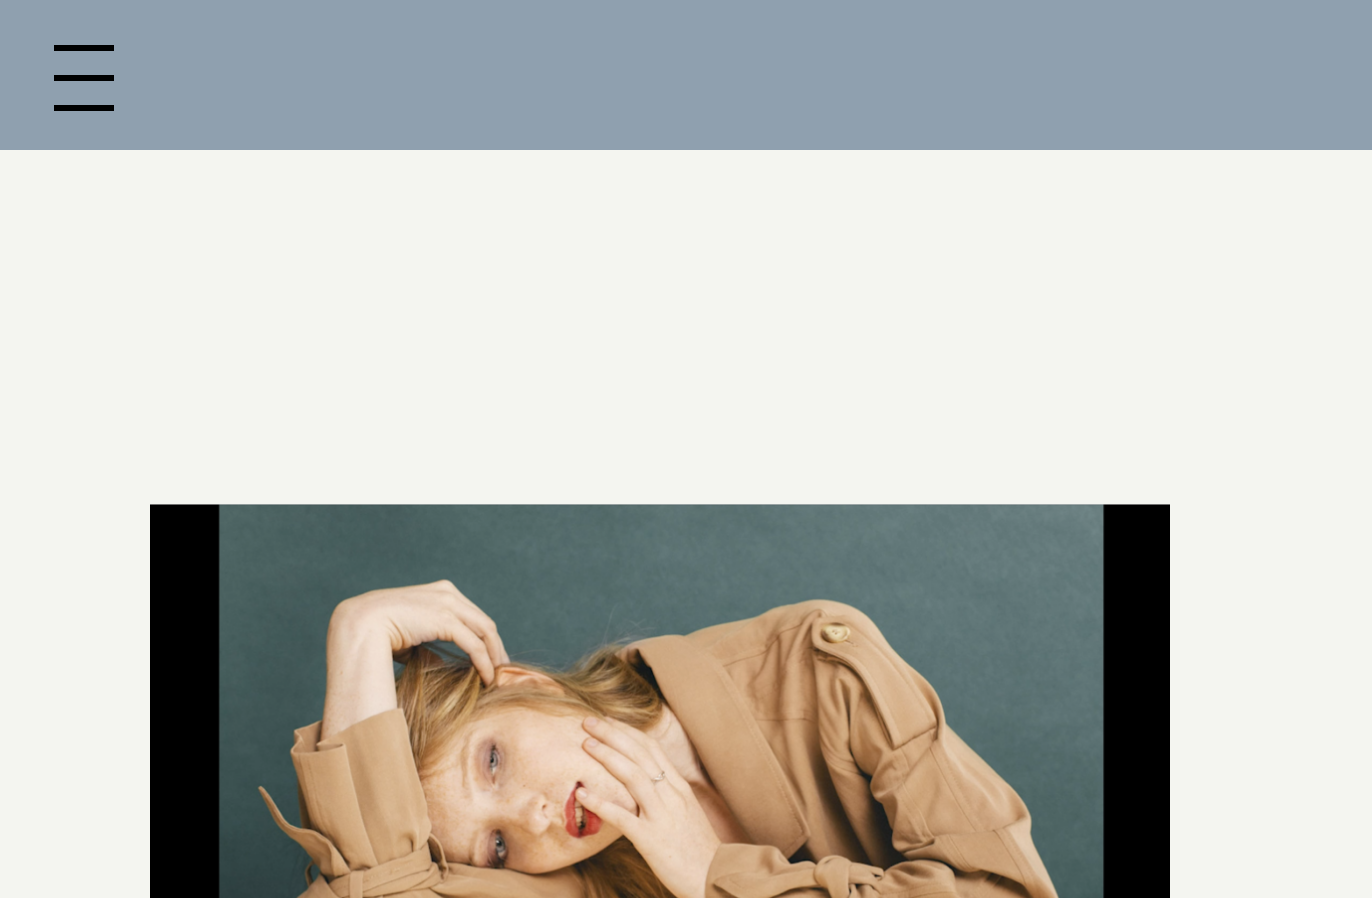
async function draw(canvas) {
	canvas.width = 1372;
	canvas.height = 898;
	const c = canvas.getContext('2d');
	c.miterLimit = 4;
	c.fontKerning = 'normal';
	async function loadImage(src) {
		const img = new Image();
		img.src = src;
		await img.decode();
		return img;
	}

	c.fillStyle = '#f4f5f0';
	c.fillRect(0, 0, 1372, 898);
	for (const [x, y, w, h, color] of [
		[0, 0, 1372, 150, '#8fa0af'],
		[54, 75, 60, 6, '#000'],
		[54, 45, 60, 6, '#000'],
		[54, 105, 60, 6, '#000'],
	]) {
		c.fillStyle = color;
		c.fillRect(x, y, w, h);
	}
	c.drawImage(await loadImage('img1.png'), 150, 504, 1020, 394);
}

draw(document.querySelector('canvas'));
